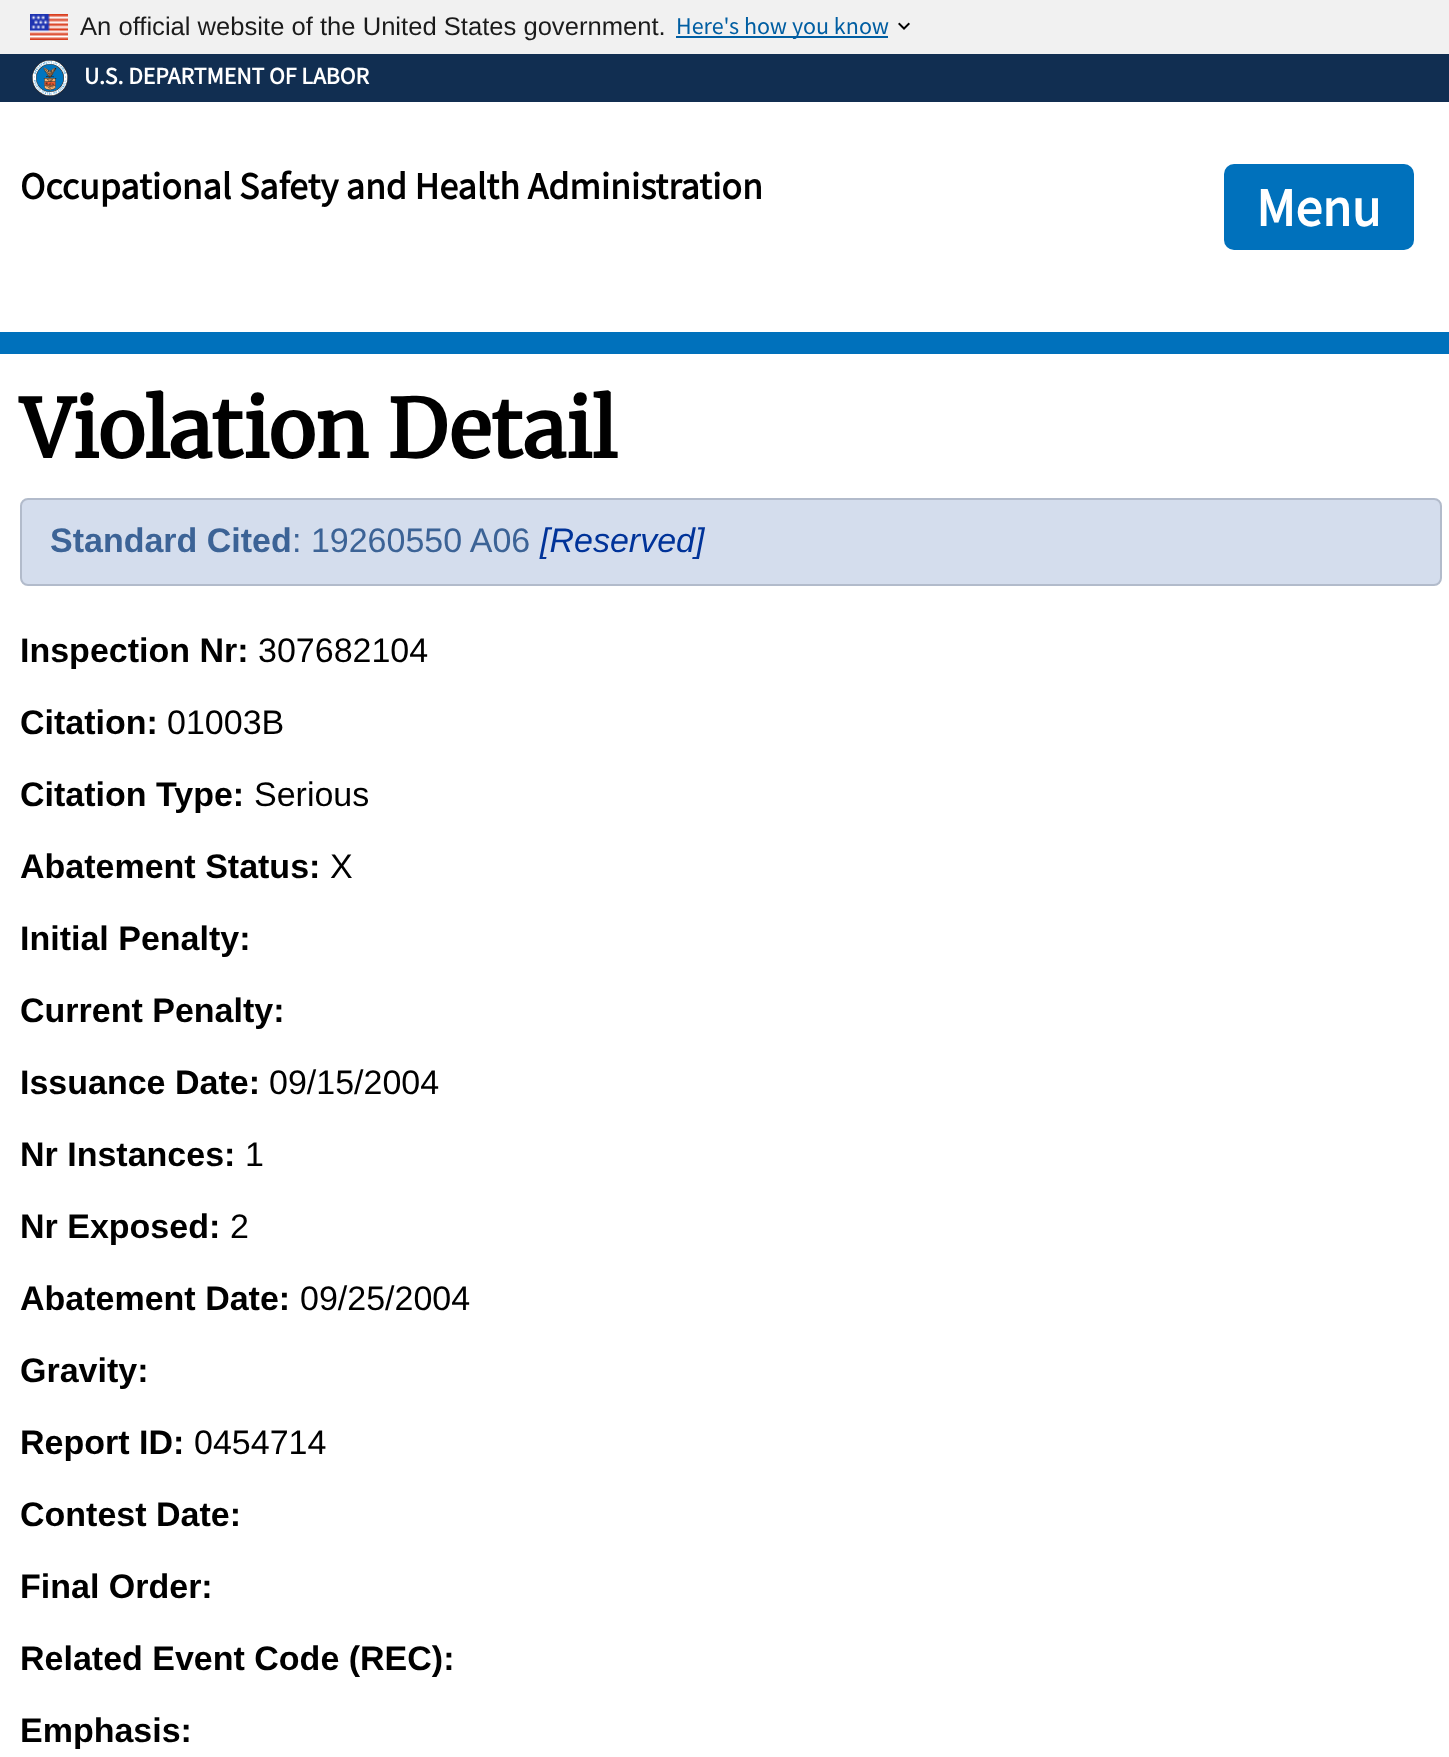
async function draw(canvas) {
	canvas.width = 1449;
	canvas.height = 1757;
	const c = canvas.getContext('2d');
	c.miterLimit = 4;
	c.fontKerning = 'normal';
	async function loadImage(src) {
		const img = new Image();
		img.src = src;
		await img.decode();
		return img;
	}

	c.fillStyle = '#fff';
	c.fillRect(0, 0, 1449, 1757);
	c.fillStyle = '#f1f1f1';
	c.fillRect(0, 0, 1449, 54);
	c.drawImage(await loadImage('img1.png'), 30, 14, 38, 26);
	c.font = '25.6px Liberation Sans';
	c.fillStyle = '#1b1b1b';
	c.fillText('An official website of the United States government.', 80, 35);
	c.drawImage(await loadImage('img2.png'), 898, 22, 12, 8);
	c.fillStyle = '#005ea2';
	c.fillRect(676, 36, 212, 2);
	c.font = '24px Source Sans Pro';
	c.fillText('Here\'s how you know', 676, 34);
	c.fillStyle = '#112e51';
	c.fillRect(0, 54, 1449, 48);
	c.drawImage(await loadImage('img3.png'), 32, 60, 36, 36);
	c.font = 'bold 23.75px Source Sans Pro';
	c.fillStyle = '#fff';
	c.fillText('U.S. DEPARTMENT OF LABOR', 84, 84);
	c.font = 'bold 38px Source Sans Pro';
	c.fillStyle = '#000';
	c.fillText('Occupational Safety and Health Administration', 20, 199);
	c.fillStyle = '#0071bc';
	c.beginPath();
	c.roundRect(1224, 164, 190, 86, 10);
	c.fill();
	c.font = 'bold 54px Source Sans Pro';
	c.fillStyle = '#fff';
	c.fillText('Menu', 1256, 226);
	c.fillStyle = '#0071bc';
	c.fillRect(0, 332, 1449, 22);
	c.font = 'bold 80px Merriweather';
	c.fillStyle = '#000';
	c.fillText('Violation Detail', 20, 458);
	c.fillStyle = '#d4dded';
	c.beginPath();
	c.roundRect(21, 499, 1420, 86, 7);
	c.fill();
	c.strokeStyle = '#b2bbcb';
	c.lineWidth = 2;
	c.stroke();
	c.font = 'bold 34px Liberation Sans';
	c.fillStyle = '#3c6396';
	c.fillText('Standard Cited', 50, 552);
	c.font = '34px Liberation Sans';
	c.fillText(': 19260550 A06', 292, 552);
	c.font = 'italic 34px Liberation Sans';
	c.fillStyle = '#039';
	c.fillText('[Reserved]', 540, 552);
	c.font = 'bold 34px Liberation Sans';
	c.fillStyle = '#000';
	c.fillText('Inspection Nr:', 20, 662);
	c.font = '34px Liberation Sans';
	c.fillText('307682104', 258, 662);
	c.font = 'bold 34px Liberation Sans';
	c.fillText('Citation:', 20, 734);
	c.font = '34px Liberation Sans';
	c.fillText('01003B', 167, 734);
	c.font = 'bold 34px Liberation Sans';
	c.fillText('Citation Type:', 20, 806);
	c.font = '34px Liberation Sans';
	c.fillText('Serious', 254, 806);
	c.font = 'bold 34px Liberation Sans';
	c.fillText('Abatement Status:', 20, 878);
	c.font = '34px Liberation Sans';
	c.fillText('X', 330, 878);
	c.font = 'bold 34px Liberation Sans';
	for (const [text, x, y] of [
		['Initial Penalty:', 20, 950],
		['Current Penalty:', 20, 1022],
		['Issuance Date:', 20, 1094],
	]) {
		c.fillText(text, x, y);
	}
	c.font = '34px Liberation Sans';
	c.fillText('09/15/2004', 269, 1094);
	c.font = 'bold 34px Liberation Sans';
	c.fillText('Nr Instances:', 20, 1166);
	c.font = '34px Liberation Sans';
	c.fillText('1', 245, 1166);
	c.font = 'bold 34px Liberation Sans';
	c.fillText('Nr Exposed:', 20, 1238);
	c.font = '34px Liberation Sans';
	c.fillText('2', 230, 1238);
	c.font = 'bold 34px Liberation Sans';
	c.fillText('Abatement Date:', 20, 1310);
	c.font = '34px Liberation Sans';
	c.fillText('09/25/2004', 300, 1310);
	c.font = 'bold 34px Liberation Sans';
	c.fillText('Gravity:', 20, 1382);
	c.fillText('Report ID:', 20, 1454);
	c.font = '34px Liberation Sans';
	c.fillText('0454714', 194, 1454);
	c.font = 'bold 34px Liberation Sans';
	for (const [text, x, y] of [
		['Contest Date:', 20, 1526],
		['Final Order:', 20, 1598],
		['Related Event Code (REC):', 20, 1670],
		['Emphasis:', 20, 1742],
	]) {
		c.fillText(text, x, y);
	}
}

draw(document.querySelector('canvas'));
